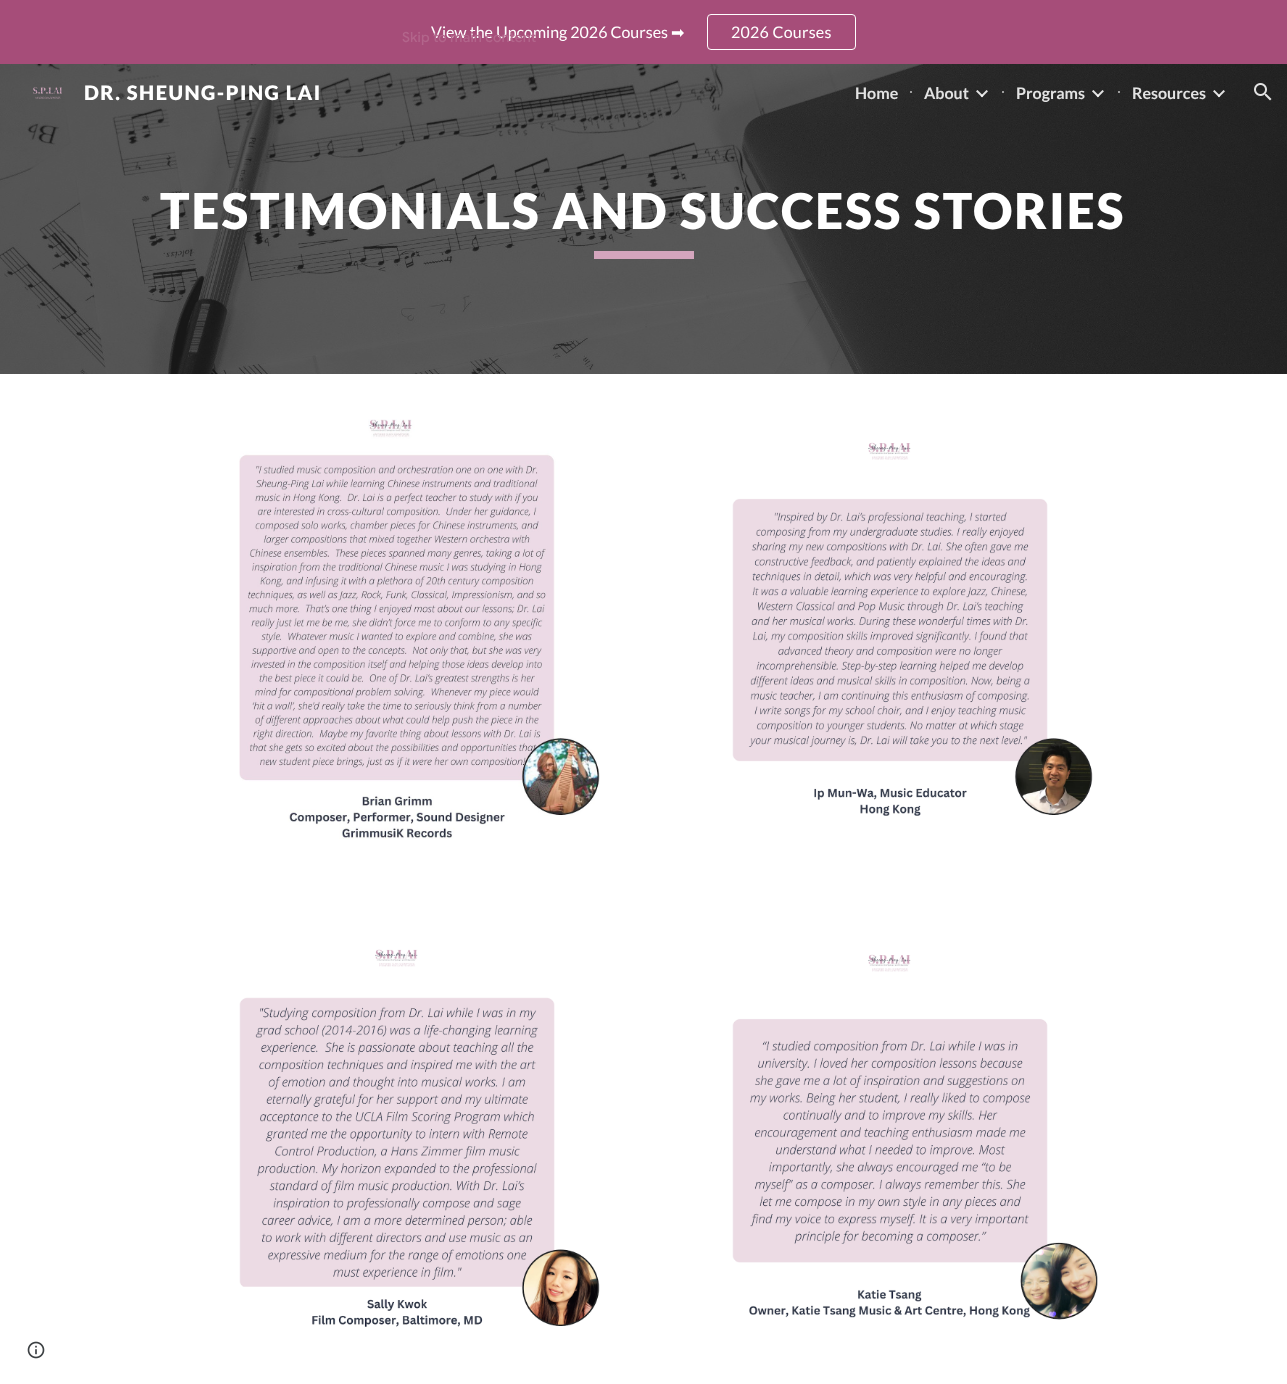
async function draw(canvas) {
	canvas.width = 1287;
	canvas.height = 1384;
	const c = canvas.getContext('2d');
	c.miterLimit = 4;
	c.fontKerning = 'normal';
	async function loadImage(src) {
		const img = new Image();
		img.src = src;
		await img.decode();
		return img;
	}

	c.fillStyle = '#fff';
	c.fillRect(0, 0, 1287, 1384);
	c.fillStyle = '#a64d79';
	c.fillRect(0, 0, 1287, 64);
	c.font = '16px Lato';
	c.fillStyle = '#fff';
	c.fillText('View the Upcoming 2026 Courses', 431, 38);
	c.font = '16px DejaVu Sans';
	c.fillText('➡', 671, 38);
	c.beginPath();
	c.roundRect(707.5, 14.5, 148, 35, 3.5);
	c.strokeStyle = '#fff';
	c.stroke();
	c.letterSpacing = '0.25px';
	c.font = '16px Lato';
	c.fillText('2026 Courses', 731, 38);
	c.drawImage(await loadImage('img6.png'), 0, 64, 1287, 310);
	c.drawImage(await loadImage('img1.png'), 33, 87, 29, 12);
	c.letterSpacing = '1.5px';
	c.font = '900 20px Lato';
	c.fillText('DR. SHEUNG-PING LAI', 84, 100);
	c.letterSpacing = '0px';
	c.font = 'bold 16px Lato';
	c.fillStyle = '#e3e3e3';
	c.fillText('Home', 855, 99);
	c.fillStyle = '#9e9e9e';
	c.fillRect(910, 91, 2, 2);
	c.fillStyle = '#e3e3e3';
	c.fillText('About', 924, 99);
	c.drawImage(await loadImage('img2.png'), 976, 90, 12, 8);
	c.fillStyle = '#9e9e9e';
	c.fillRect(1002, 91, 2, 2);
	c.fillStyle = '#e3e3e3';
	c.fillText('Programs', 1016, 99);
	c.drawImage(await loadImage('img3.png'), 1092, 90, 12, 8);
	c.fillStyle = '#9e9e9e';
	c.fillRect(1118, 91, 2, 2);
	c.fillStyle = '#e3e3e3';
	c.fillText('Resources', 1132, 99);
	c.drawImage(await loadImage('img4.png'), 1213, 90, 12, 8);
	c.drawImage(await loadImage('img5.png'), 1254, 83, 18, 18);
	c.letterSpacing = '2px';
	c.font = '900 49.3px Lato';
	c.fillStyle = '#fff';
	c.fillText('TESTIMONIALS AND SUCCESS STORIES', 160, 229);
	c.fillStyle = '#d4a5bd';
	c.fillRect(594, 251, 100, 8);
	c.drawImage(await loadImage('img7.png'), 239, 419, 361, 420);
	c.drawImage(await loadImage('img8.png'), 732, 442, 361, 374);
	c.drawImage(await loadImage('img9.png'), 239, 949, 361, 378);
	c.drawImage(await loadImage('img10.png'), 732, 954, 366, 366);
	c.drawImage(await loadImage('img11.png'), 27, 1341, 18, 18);
	c.letterSpacing = '0.1px';
	c.font = '500 14px Google Sans';
	c.fillStyle = '#b2658b';
	c.fillText('Skip to main content', 402, 42);
}

draw(document.querySelector('canvas'));
